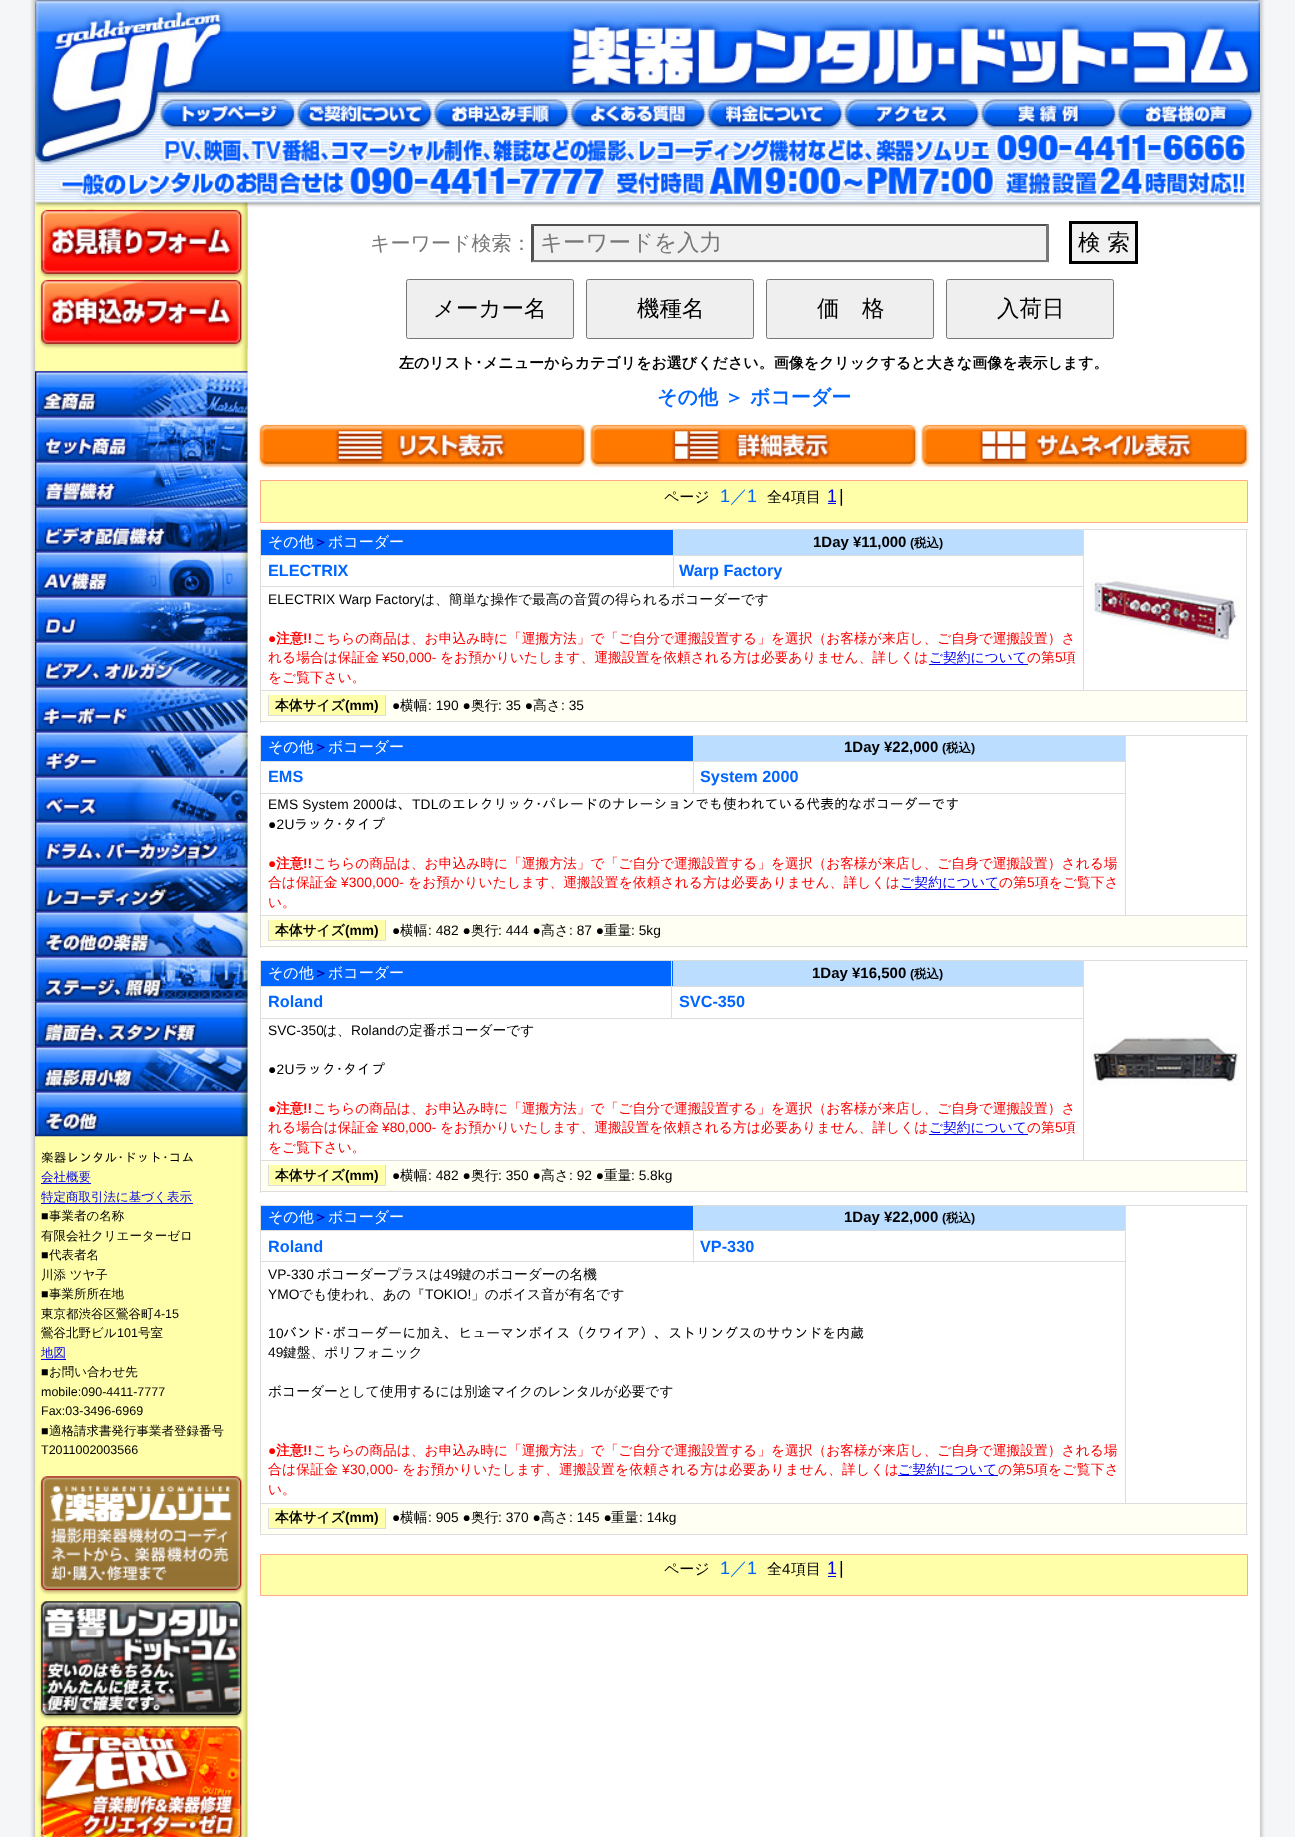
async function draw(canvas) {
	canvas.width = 1295;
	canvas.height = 1837;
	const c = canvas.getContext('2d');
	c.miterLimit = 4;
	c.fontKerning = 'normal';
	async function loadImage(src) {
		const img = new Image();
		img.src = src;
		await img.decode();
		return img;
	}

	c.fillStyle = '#f5f6f7';
	c.fillRect(0, 0, 1295, 1837);
	c.drawImage(await loadImage('img1.png'), 30, 0, 1235, 1837);
	c.drawImage(await loadImage('img2.png'), 35, 0, 125, 209);
	c.drawImage(await loadImage('img3.png'), 160, 0, 1100, 97);
	c.drawImage(await loadImage('img12.png'), 160, 131, 1100, 78);
	c.drawImage(await loadImage('img4.png'), 160, 96, 137, 36);
	c.drawImage(await loadImage('img5.png'), 296, 96, 137, 36);
	c.drawImage(await loadImage('img6.png'), 432, 96, 138, 36);
	c.drawImage(await loadImage('img7.png'), 570, 96, 137, 36);
	c.drawImage(await loadImage('img8.png'), 706, 96, 138, 36);
	c.drawImage(await loadImage('img9.png'), 843, 96, 137, 36);
	c.drawImage(await loadImage('img10.png'), 980, 96, 138, 36);
	c.drawImage(await loadImage('img11.png'), 1117, 96, 143, 36);
	c.drawImage(await loadImage('img13.png'), 35, 208, 213, 71);
	c.drawImage(await loadImage('img14.png'), 35, 278, 213, 71);
	c.drawImage(await loadImage('img15.png'), 35, 371, 213, 46);
	c.drawImage(await loadImage('img35.png'), 247, 423, 341, 51);
	c.drawImage(await loadImage('img16.png'), 35, 416, 213, 46);
	c.drawImage(await loadImage('img17.png'), 35, 461, 213, 46);
	c.drawImage(await loadImage('img18.png'), 35, 506, 213, 46);
	c.drawImage(await loadImage('img19.png'), 35, 551, 213, 46);
	c.drawImage(await loadImage('img20.png'), 35, 596, 213, 46);
	c.drawImage(await loadImage('img21.png'), 35, 641, 213, 46);
	c.drawImage(await loadImage('img22.png'), 35, 686, 213, 46);
	c.drawImage(await loadImage('img23.png'), 35, 731, 213, 46);
	c.drawImage(await loadImage('img24.png'), 35, 776, 213, 46);
	c.drawImage(await loadImage('img25.png'), 35, 821, 213, 46);
	c.drawImage(await loadImage('img26.png'), 35, 866, 213, 46);
	c.drawImage(await loadImage('img27.png'), 35, 911, 213, 46);
	c.drawImage(await loadImage('img28.png'), 35, 956, 213, 46);
	c.drawImage(await loadImage('img29.png'), 35, 1001, 213, 46);
	c.drawImage(await loadImage('img30.png'), 35, 1046, 213, 46);
	c.drawImage(await loadImage('img31.png'), 35, 1091, 213, 46);
	c.letterSpacing = '0.25px';
	c.font = '12.5px IPAGothic';
	c.fillStyle = '#000';
	c.fillText('楽器レンタル･ドット･コム', 41, 1162);
	c.letterSpacing = '0px';
	c.font = '500 12.5px WenQuanYi Zen Hei';
	c.fillStyle = '#00e';
	c.fillText('会社概要', 41, 1181);
	c.fillRect(41, 1183, 50, 1);
	c.fillRect(41, 1203, 152, 1);
	c.fillText('特定商取引法に基づく表示', 41, 1201);
	c.font = '12.5px Liberation Sans';
	c.fillStyle = '#000';
	c.fillText('■', 41, 1220);
	c.font = '500 12.5px WenQuanYi Zen Hei';
	c.fillText('事業者の名称', 49, 1220);
	c.fillText('有限会社クリエーターゼロ', 41, 1240);
	c.font = '12.5px Liberation Sans';
	c.fillText('■', 41, 1259);
	c.font = '500 12.5px WenQuanYi Zen Hei';
	c.fillText('代表者名', 49, 1259);
	c.fillText('川添 ツヤ子', 41, 1279);
	c.font = '12.5px Liberation Sans';
	c.fillText('■', 41, 1298);
	c.font = '500 12.5px WenQuanYi Zen Hei';
	c.fillText('事業所所在地', 49, 1298);
	c.fillText('東京都渋谷区鶯谷町', 41, 1318);
	c.font = '12.5px Liberation Sans';
	c.fillText('4-15', 154, 1318);
	c.font = '500 12.5px WenQuanYi Zen Hei';
	c.fillText('鶯谷北野ビル', 41, 1337);
	c.font = '12.5px Liberation Sans';
	c.fillText('101', 117, 1337);
	c.font = '500 12.5px WenQuanYi Zen Hei';
	c.fillText('号室', 138, 1337);
	c.fillStyle = '#00e';
	c.fillText('地図', 41, 1357);
	c.fillRect(41, 1359, 25, 1);
	c.font = '12.5px Liberation Sans';
	c.fillStyle = '#000';
	c.fillText('■', 41, 1376);
	c.font = '500 12.5px WenQuanYi Zen Hei';
	c.fillText('お問い合わせ先', 49, 1376);
	c.font = '12.5px Liberation Sans';
	for (const [text, x, y] of [
		['mobile:090-4411-7777', 41, 1396],
		['Fax:03-3496-6969', 41, 1415],
		['■', 41, 1435],
	]) {
		c.fillText(text, x, y);
	}
	c.font = '500 12.5px WenQuanYi Zen Hei';
	c.fillText('適格請求書発行事業者登録番号', 49, 1435);
	c.font = '12.5px Liberation Sans';
	c.fillText('T2011002003566', 41, 1454);
	c.drawImage(await loadImage('img32.png'), 39, 1476, 205, 119);
	c.drawImage(await loadImage('img33.png'), 39, 1601, 205, 119);
	c.drawImage(await loadImage('img34.png'), 37, 1724, 207, 113);
	c.font = '500 20px WenQuanYi Zen Hei';
	c.fillStyle = '#777';
	c.fillText('キーワード検索：', 370, 250);
	c.fillStyle = '#f1f1f1';
	c.fillRect(531, 224, 518, 39);
	c.fillStyle = '#4f4f4f';
	c.beginPath();
	c.moveTo(531, 224);
	c.lineTo(1049, 224);
	c.lineTo(1046, 226);
	c.lineTo(534, 226);
	c.closePath();
	c.fill();
	c.fillStyle = '#767676';
	c.beginPath();
	c.moveTo(1049, 224);
	c.lineTo(1049, 262.5);
	c.lineTo(1046, 260);
	c.lineTo(1046, 226);
	c.closePath();
	c.fill();
	c.beginPath();
	c.moveTo(1049, 262);
	c.lineTo(531, 262);
	c.lineTo(534, 260);
	c.lineTo(1046, 260);
	c.closePath();
	c.fill();
	c.fillStyle = '#4f4f4f';
	c.beginPath();
	c.moveTo(531, 262.5);
	c.lineTo(531, 224);
	c.lineTo(534, 226);
	c.lineTo(534, 260);
	c.closePath();
	c.fill();
	c.font = '500 22.5px WenQuanYi Zen Hei';
	c.fillStyle = '#777';
	c.fillText('キーワードを入力', 540, 250);
	c.fillStyle = '#f1f1f1';
	c.beginPath();
	c.rect(1070.5, 222.5, 66, 40);
	c.fill();
	c.strokeStyle = '#000';
	c.lineWidth = 3;
	c.stroke();
	c.fillStyle = '#000';
	c.fillText('検 索', 1078, 250);
	c.fillStyle = '#efefef';
	c.beginPath();
	c.roundRect(406.5, 279.5, 167, 59, 2);
	c.fill();
	c.strokeStyle = '#767676';
	c.lineWidth = 1;
	c.stroke();
	c.fillStyle = '#000';
	c.fillText('メーカー名', 433, 316);
	c.fillStyle = '#efefef';
	c.beginPath();
	c.roundRect(586.5, 279.5, 167, 59, 2);
	c.fill();
	c.stroke();
	c.fillStyle = '#000';
	c.fillText('機種名', 637, 316);
	c.fillStyle = '#efefef';
	c.beginPath();
	c.roundRect(766.5, 279.5, 167, 59, 2);
	c.fill();
	c.stroke();
	c.fillStyle = '#000';
	c.fillText('価　格', 817, 316);
	c.fillStyle = '#efefef';
	c.beginPath();
	c.roundRect(946.5, 279.5, 167, 59, 2);
	c.fill();
	c.stroke();
	c.fillStyle = '#000';
	c.fillText('入荷日', 997, 316);
	c.font = 'bold 15px WenQuanYi Zen Hei';
	c.fillText('左のリスト', 399, 368);
	c.font = 'bold 15px IPAGothic';
	c.fillText('･', 475, 368);
	c.font = 'bold 15px WenQuanYi Zen Hei';
	c.fillText('メニューからカテゴリをお選びください。画像をクリックすると大きな画像を表示します。', 483, 368);
	c.font = 'bold 20px WenQuanYi Zen Hei';
	c.fillStyle = '#06f';
	c.fillText('その他 ＞ ボコーダー', 657, 404);
	c.drawImage(await loadImage('img36.png'), 589, 424, 330, 50);
	c.drawImage(await loadImage('img37.png'), 920, 424, 340, 50);
	c.fillStyle = '#ffa';
	c.beginPath();
	c.rect(260.5, 480.5, 987, 42);
	c.fill();
	c.strokeStyle = '#fa8';
	c.stroke();
	c.font = '500 15px WenQuanYi Zen Hei';
	c.fillStyle = '#000';
	c.fillText('ページ', 664, 502);
	c.font = '18px Liberation Sans';
	c.fillStyle = '#06f';
	c.fillText('1', 720, 502);
	c.font = '500 18px WenQuanYi Zen Hei';
	c.fillText('／', 730, 502);
	c.font = '18px Liberation Sans';
	c.fillText('1', 747, 502);
	c.font = '500 15px WenQuanYi Zen Hei';
	c.fillStyle = '#000';
	c.fillText('全', 767, 502);
	c.font = '15px Liberation Sans';
	c.fillText('4', 782, 502);
	c.font = '500 15px WenQuanYi Zen Hei';
	c.fillText('項目', 791, 502);
	c.font = '18px Liberation Sans';
	c.fillStyle = '#00e';
	c.fillText('1', 827, 502);
	c.fillRect(828, 503, 8, 1);
	c.fillStyle = '#000';
	c.fillText('|', 839, 502);
	for (const [x, y, w, h, color] of [
		[261, 530, 412, 25, '#06f'],
		[1083, 529, 165, 1, '#ddd'],
		[261, 691, 987, 30, '#fffff3'],
		[1246, 690, 1, 33, '#ddd'],
		[1246, 529, 1, 162, '#ddd'],
		[260, 721, 988, 1, '#ddd'],
		[260, 690, 1, 33, '#ddd'],
		[260, 690, 824, 1, '#ddd'],
		[1083, 690, 165, 1, '#ddd'],
		[673, 586, 411, 1, '#ddd'],
		[1083, 529, 1, 162, '#ddd'],
		[260, 529, 824, 1, '#ddd'],
		[673, 555, 1, 33, '#ddd'],
		[673, 555, 411, 1, '#ddd'],
		[673, 529, 1, 27, '#ddd'],
		[260, 586, 1, 105, '#ddd'],
		[260, 586, 414, 1, '#ddd'],
		[260, 555, 1, 33, '#ddd'],
		[260, 555, 414, 1, '#ddd'],
		[260, 529, 1, 27, '#ddd'],
	]) {
		c.fillStyle = color;
		c.fillRect(x, y, w, h);
	}
	c.font = '500 15px WenQuanYi Zen Hei';
	c.fillStyle = '#fff';
	c.fillText('その他', 268, 547);
	c.font = 'bold 15px WenQuanYi Zen Hei';
	c.fillStyle = '#00a';
	c.fillText('＞', 313, 547);
	c.font = '500 15px WenQuanYi Zen Hei';
	c.fillStyle = '#fff';
	c.fillText('ボコーダー', 328, 547);
	c.fillStyle = '#bdf';
	c.fillRect(674, 530, 409, 25);
	c.font = 'bold 15px Liberation Sans';
	c.fillStyle = '#000';
	c.fillText('1Day ¥11,000', 813, 547);
	c.font = 'bold 12.5px Liberation Sans';
	c.fillText('(', 910, 547);
	c.font = 'bold 12.5px WenQuanYi Zen Hei';
	c.fillText('税込', 914, 547);
	c.font = 'bold 12.5px Liberation Sans';
	c.fillText(')', 939, 547);
	c.drawImage(await loadImage('img38.png'), 1090, 575, 150, 69);
	c.font = 'bold 16.25px Liberation Sans';
	c.fillStyle = '#06f';
	c.fillText('ELECTRIX', 268, 576);
	c.fillText('Warp Factory', 679, 576);
	c.font = '13.75px Liberation Sans';
	c.fillStyle = '#000';
	c.fillText('ELECTRIX Warp Factory', 268, 604);
	c.font = '500 13.75px WenQuanYi Zen Hei';
	c.fillText('は、簡単な操作で最高の音質の得られるボコーダーです', 421, 604);
	c.font = '13.75px Liberation Sans';
	c.fillStyle = '#f00';
	c.fillText('●', 268, 643);
	c.font = 'bold 13.75px WenQuanYi Zen Hei';
	c.fillText('注意', 276, 643);
	c.font = 'bold 13.75px Liberation Sans';
	c.fillText('!!', 303, 643);
	c.font = '500 13.75px WenQuanYi Zen Hei';
	c.fillText('こちらの商品は、お申込み時に「運搬方法」で「ご自分で運搬設置する」を選択（お客様が来店し、ご自身で運搬設置）さ', 313, 643);
	c.fillText('れる場合は保証金', 268, 662);
	c.font = '13.75px Liberation Sans';
	c.fillText('¥50,000-', 382, 662);
	c.font = '500 13.75px WenQuanYi Zen Hei';
	c.fillText('をお預かりいたします、運搬設置を依頼される方は必要ありません、詳しくは', 440, 662);
	c.fillStyle = '#00e';
	c.fillText('ご契約について', 929, 662);
	c.fillRect(929, 664, 99, 1);
	c.fillStyle = '#f00';
	c.fillText('の第', 1027, 662);
	c.font = '13.75px Liberation Sans';
	c.fillText('5', 1055, 662);
	c.font = '500 13.75px WenQuanYi Zen Hei';
	c.fillText('項', 1062, 662);
	c.fillText('をご覧下さい。', 268, 682);
	c.fillStyle = '#ffa';
	c.fillRect(269, 695, 116, 20);
	c.font = 'bold 13.75px WenQuanYi Zen Hei';
	c.fillStyle = '#000';
	c.fillText('本体サイズ', 275, 710);
	for (const [x, y, w, h, color] of [
		[385, 695, 1, 21, '#ddd'],
		[268, 715, 118, 1, '#ddd'],
		[268, 695, 1, 21, '#ddd'],
	]) {
		c.fillStyle = color;
		c.fillRect(x, y, w, h);
	}
	c.font = 'bold 13.75px Liberation Sans';
	c.fillStyle = '#000';
	c.fillText('(mm)', 345, 710);
	c.font = '13.75px Liberation Sans';
	c.fillText('●', 392, 710);
	c.font = '500 13.75px WenQuanYi Zen Hei';
	c.fillText('横幅', 400, 710);
	c.font = '13.75px Liberation Sans';
	c.fillText(': 190 ●', 428, 710);
	c.font = '500 13.75px WenQuanYi Zen Hei';
	c.fillText('奥行', 471, 710);
	c.font = '13.75px Liberation Sans';
	c.fillText(': 35 ●', 498, 710);
	c.font = '500 13.75px WenQuanYi Zen Hei';
	c.fillText('高さ', 533, 710);
	c.font = '13.75px Liberation Sans';
	c.fillText(': 35', 561, 710);
	for (const [x, y, w, h, color] of [
		[261, 736, 432, 25, '#06f'],
		[1125, 735, 123, 1, '#ddd'],
		[261, 916, 987, 32, '#fffff3'],
		[1246, 915, 1, 33, '#ddd'],
		[1246, 735, 1, 181, '#ddd'],
		[260, 946, 988, 1, '#ddd'],
		[260, 915, 1, 33, '#ddd'],
		[260, 915, 866, 1, '#ddd'],
		[1125, 915, 123, 1, '#ddd'],
		[693, 793, 433, 1, '#ddd'],
		[1125, 735, 1, 181, '#ddd'],
		[260, 735, 866, 1, '#ddd'],
		[693, 761, 1, 33, '#ddd'],
		[693, 761, 433, 1, '#ddd'],
		[693, 735, 1, 28, '#ddd'],
		[260, 793, 1, 123, '#ddd'],
		[260, 793, 434, 1, '#ddd'],
		[260, 761, 1, 33, '#ddd'],
		[260, 761, 434, 1, '#ddd'],
		[260, 735, 1, 28, '#ddd'],
	]) {
		c.fillStyle = color;
		c.fillRect(x, y, w, h);
	}
	c.font = '500 15px WenQuanYi Zen Hei';
	c.fillStyle = '#fff';
	c.fillText('その他', 268, 752);
	c.font = 'bold 15px WenQuanYi Zen Hei';
	c.fillStyle = '#00a';
	c.fillText('＞', 313, 752);
	c.font = '500 15px WenQuanYi Zen Hei';
	c.fillStyle = '#fff';
	c.fillText('ボコーダー', 328, 752);
	c.fillStyle = '#bdf';
	c.fillRect(694, 736, 431, 25);
	c.font = 'bold 15px Liberation Sans';
	c.fillStyle = '#000';
	c.fillText('1Day ¥22,000', 844, 752);
	c.font = 'bold 12.5px Liberation Sans';
	c.fillText('(', 942, 752);
	c.font = 'bold 12.5px WenQuanYi Zen Hei';
	c.fillText('税込', 946, 752);
	c.font = 'bold 12.5px Liberation Sans';
	c.fillText(')', 971, 752);
	c.font = 'bold 16.25px Liberation Sans';
	c.fillStyle = '#06f';
	c.fillText('EMS', 268, 782);
	c.fillText('System 2000', 700, 782);
	c.letterSpacing = '0.15px';
	c.font = '13.75px Liberation Sans';
	c.fillStyle = '#000';
	c.fillText('EMS System 2000', 268, 809);
	c.font = '13.75px IPAGothic';
	c.fillText('は、', 384, 809);
	c.font = '13.75px Liberation Sans';
	c.fillText('TDL', 412, 809);
	c.font = '13.75px IPAGothic';
	c.fillText('のエレクリック･パレードのナレーションでも使われている代表的なボコーダーです', 438, 809);
	c.letterSpacing = '0.25px';
	c.font = '13.75px Liberation Sans';
	c.fillText('●2U', 268, 829);
	c.font = '13.75px IPAGothic';
	c.fillText('ラック･タイプ', 294, 829);
	c.letterSpacing = '0px';
	c.font = '13.75px Liberation Sans';
	c.fillStyle = '#f00';
	c.fillText('●', 268, 868);
	c.font = 'bold 13.75px WenQuanYi Zen Hei';
	c.fillText('注意', 276, 868);
	c.font = 'bold 13.75px Liberation Sans';
	c.fillText('!!', 303, 868);
	c.font = '500 13.75px WenQuanYi Zen Hei';
	c.fillText('こちらの商品は、お申込み時に「運搬方法」で「ご自分で運搬設置する」を選択（お客様が来店し、ご自身で運搬設置）される場', 313, 868);
	c.letterSpacing = '0.1px';
	c.fillText('合は保証金', 268, 887);
	c.font = '13.75px Liberation Sans';
	c.fillText('¥300,000-', 341, 887);
	c.font = '500 13.75px WenQuanYi Zen Hei';
	c.fillText('をお預かりいたします、運搬設置を依頼される方は必要ありません、詳しくは', 408, 887);
	c.letterSpacing = '0.25px';
	c.fillStyle = '#00e';
	c.fillText('ご契約について', 900, 887);
	c.fillRect(900, 889, 99, 1);
	c.letterSpacing = '0px';
	c.fillStyle = '#f00';
	c.fillText('の第', 999, 887);
	c.font = '13.75px Liberation Sans';
	c.fillText('5', 1027, 887);
	c.font = '500 13.75px WenQuanYi Zen Hei';
	c.fillText('項をご覧下さ', 1035, 887);
	c.fillText('い。', 268, 907);
	c.fillStyle = '#ffa';
	c.fillRect(269, 920, 116, 20);
	c.font = 'bold 13.75px WenQuanYi Zen Hei';
	c.fillStyle = '#000';
	c.fillText('本体サイズ', 275, 935);
	for (const [x, y, w, h, color] of [
		[385, 920, 1, 21, '#ddd'],
		[268, 940, 118, 1, '#ddd'],
		[268, 920, 1, 21, '#ddd'],
	]) {
		c.fillStyle = color;
		c.fillRect(x, y, w, h);
	}
	c.font = 'bold 13.75px Liberation Sans';
	c.fillStyle = '#000';
	c.fillText('(mm)', 345, 935);
	c.font = '13.75px Liberation Sans';
	c.fillText('●', 392, 935);
	c.font = '500 13.75px WenQuanYi Zen Hei';
	c.fillText('横幅', 400, 935);
	c.font = '13.75px Liberation Sans';
	c.fillText(': 482 ●', 428, 935);
	c.font = '500 13.75px WenQuanYi Zen Hei';
	c.fillText('奥行', 471, 935);
	c.font = '13.75px Liberation Sans';
	c.fillText(': 444 ●', 498, 935);
	c.font = '500 13.75px WenQuanYi Zen Hei';
	c.fillText('高さ', 541, 935);
	c.font = '13.75px Liberation Sans';
	c.fillText(': 87 ●', 569, 935);
	c.font = '500 13.75px WenQuanYi Zen Hei';
	c.fillText('重量', 604, 935);
	c.font = '13.75px Liberation Sans';
	c.fillText(': 5kg', 631, 935);
	for (const [x, y, w, h, color] of [
		[261, 961, 412, 25, '#06f'],
		[1083, 960, 165, 1, '#ddd'],
		[261, 1161, 987, 30, '#fffff3'],
		[1246, 1160, 1, 33, '#ddd'],
		[1246, 960, 1, 201, '#ddd'],
		[260, 1191, 988, 1, '#ddd'],
		[260, 1160, 1, 33, '#ddd'],
		[260, 1160, 824, 1, '#ddd'],
		[1083, 1160, 165, 1, '#ddd'],
		[671, 1018, 413, 1, '#ddd'],
		[1083, 960, 1, 201, '#ddd'],
		[260, 960, 824, 1, '#ddd'],
		[671, 986, 1, 33, '#ddd'],
		[671, 986, 413, 1, '#ddd'],
		[671, 960, 1, 28, '#ddd'],
		[260, 1018, 1, 143, '#ddd'],
		[260, 1018, 413, 1, '#ddd'],
		[260, 986, 1, 33, '#ddd'],
		[260, 986, 413, 1, '#ddd'],
		[260, 960, 1, 28, '#ddd'],
	]) {
		c.fillStyle = color;
		c.fillRect(x, y, w, h);
	}
	c.font = '500 15px WenQuanYi Zen Hei';
	c.fillStyle = '#fff';
	c.fillText('その他', 268, 978);
	c.font = 'bold 15px WenQuanYi Zen Hei';
	c.fillStyle = '#00a';
	c.fillText('＞', 313, 978);
	c.font = '500 15px WenQuanYi Zen Hei';
	c.fillStyle = '#fff';
	c.fillText('ボコーダー', 328, 978);
	c.fillStyle = '#bdf';
	c.fillRect(673, 961, 410, 25);
	c.font = 'bold 15px Liberation Sans';
	c.fillStyle = '#000';
	c.fillText('1Day ¥16,500', 812, 978);
	c.font = 'bold 12.5px Liberation Sans';
	c.fillText('(', 910, 978);
	c.font = 'bold 12.5px WenQuanYi Zen Hei';
	c.fillText('税込', 914, 978);
	c.font = 'bold 12.5px Liberation Sans';
	c.fillText(')', 939, 978);
	c.drawImage(await loadImage('img39.png'), 1090, 1036, 150, 49);
	c.font = 'bold 16.25px Liberation Sans';
	c.fillStyle = '#06f';
	c.fillText('Roland', 268, 1007);
	c.fillText('SVC-350', 679, 1007);
	c.font = '13.75px Liberation Sans';
	c.fillStyle = '#000';
	c.fillText('SVC-350', 268, 1035);
	c.font = '500 13.75px WenQuanYi Zen Hei';
	c.fillText('は、', 323, 1035);
	c.font = '13.75px Liberation Sans';
	c.fillText('Roland', 351, 1035);
	c.font = '500 13.75px WenQuanYi Zen Hei';
	c.fillText('の定番ボコーダーです', 395, 1035);
	c.letterSpacing = '0.25px';
	c.font = '13.75px Liberation Sans';
	c.fillText('●2U', 268, 1074);
	c.font = '13.75px IPAGothic';
	c.fillText('ラック･タイプ', 294, 1074);
	c.letterSpacing = '0px';
	c.font = '13.75px Liberation Sans';
	c.fillStyle = '#f00';
	c.fillText('●', 268, 1113);
	c.font = 'bold 13.75px WenQuanYi Zen Hei';
	c.fillText('注意', 276, 1113);
	c.font = 'bold 13.75px Liberation Sans';
	c.fillText('!!', 303, 1113);
	c.font = '500 13.75px WenQuanYi Zen Hei';
	c.fillText('こちらの商品は、お申込み時に「運搬方法」で「ご自分で運搬設置する」を選択（お客様が来店し、ご自身で運搬設置）さ', 313, 1113);
	c.fillText('れる場合は保証金', 268, 1132);
	c.font = '13.75px Liberation Sans';
	c.fillText('¥80,000-', 382, 1132);
	c.font = '500 13.75px WenQuanYi Zen Hei';
	c.fillText('をお預かりいたします、運搬設置を依頼される方は必要ありません、詳しくは', 440, 1132);
	c.fillStyle = '#00e';
	c.fillText('ご契約について', 929, 1132);
	c.fillRect(929, 1134, 99, 1);
	c.fillStyle = '#f00';
	c.fillText('の第', 1027, 1132);
	c.font = '13.75px Liberation Sans';
	c.fillText('5', 1055, 1132);
	c.font = '500 13.75px WenQuanYi Zen Hei';
	c.fillText('項', 1062, 1132);
	c.fillText('をご覧下さい。', 268, 1152);
	c.fillStyle = '#ffa';
	c.fillRect(269, 1165, 116, 20);
	c.font = 'bold 13.75px WenQuanYi Zen Hei';
	c.fillStyle = '#000';
	c.fillText('本体サイズ', 275, 1180);
	for (const [x, y, w, h, color] of [
		[385, 1165, 1, 21, '#ddd'],
		[268, 1185, 118, 1, '#ddd'],
		[268, 1165, 1, 21, '#ddd'],
	]) {
		c.fillStyle = color;
		c.fillRect(x, y, w, h);
	}
	c.font = 'bold 13.75px Liberation Sans';
	c.fillStyle = '#000';
	c.fillText('(mm)', 345, 1180);
	c.font = '13.75px Liberation Sans';
	c.fillText('●', 392, 1180);
	c.font = '500 13.75px WenQuanYi Zen Hei';
	c.fillText('横幅', 400, 1180);
	c.font = '13.75px Liberation Sans';
	c.fillText(': 482 ●', 428, 1180);
	c.font = '500 13.75px WenQuanYi Zen Hei';
	c.fillText('奥行', 471, 1180);
	c.font = '13.75px Liberation Sans';
	c.fillText(': 350 ●', 498, 1180);
	c.font = '500 13.75px WenQuanYi Zen Hei';
	c.fillText('高さ', 541, 1180);
	c.font = '13.75px Liberation Sans';
	c.fillText(': 92 ●', 569, 1180);
	c.font = '500 13.75px WenQuanYi Zen Hei';
	c.fillText('重量', 604, 1180);
	c.font = '13.75px Liberation Sans';
	c.fillText(': 5.8kg', 631, 1180);
	for (const [x, y, w, h, color] of [
		[261, 1206, 432, 24, '#06f'],
		[1125, 1205, 123, 1, '#ddd'],
		[261, 1504, 987, 30, '#fffff3'],
		[1246, 1503, 1, 32, '#ddd'],
		[1246, 1205, 1, 299, '#ddd'],
		[260, 1534, 988, 1, '#ddd'],
		[260, 1503, 1, 32, '#ddd'],
		[260, 1503, 866, 1, '#ddd'],
		[1125, 1503, 123, 1, '#ddd'],
		[693, 1261, 433, 1, '#ddd'],
		[1125, 1205, 1, 299, '#ddd'],
		[260, 1205, 866, 1, '#ddd'],
		[693, 1230, 1, 33, '#ddd'],
		[693, 1230, 433, 1, '#ddd'],
		[693, 1205, 1, 26, '#ddd'],
		[260, 1261, 1, 243, '#ddd'],
		[260, 1261, 434, 1, '#ddd'],
		[260, 1230, 1, 33, '#ddd'],
		[260, 1230, 434, 1, '#ddd'],
		[260, 1205, 1, 26, '#ddd'],
	]) {
		c.fillStyle = color;
		c.fillRect(x, y, w, h);
	}
	c.font = '500 15px WenQuanYi Zen Hei';
	c.fillStyle = '#fff';
	c.fillText('その他', 268, 1222);
	c.font = 'bold 15px WenQuanYi Zen Hei';
	c.fillStyle = '#00a';
	c.fillText('＞', 313, 1222);
	c.font = '500 15px WenQuanYi Zen Hei';
	c.fillStyle = '#fff';
	c.fillText('ボコーダー', 328, 1222);
	c.fillStyle = '#bdf';
	c.fillRect(694, 1206, 431, 24);
	c.font = 'bold 15px Liberation Sans';
	c.fillStyle = '#000';
	c.fillText('1Day ¥22,000', 844, 1222);
	c.font = 'bold 12.5px Liberation Sans';
	c.fillText('(', 942, 1222);
	c.font = 'bold 12.5px WenQuanYi Zen Hei';
	c.fillText('税込', 946, 1222);
	c.font = 'bold 12.5px Liberation Sans';
	c.fillText(')', 971, 1222);
	c.font = 'bold 16.25px Liberation Sans';
	c.fillStyle = '#06f';
	c.fillText('Roland', 268, 1252);
	c.fillText('VP-330', 700, 1252);
	c.font = '13.75px Liberation Sans';
	c.fillStyle = '#000';
	c.fillText('VP-330', 268, 1279);
	c.font = '500 13.75px WenQuanYi Zen Hei';
	c.fillText('ボコーダープラスは', 317, 1279);
	c.font = '13.75px Liberation Sans';
	c.fillText('49', 443, 1279);
	c.font = '500 13.75px WenQuanYi Zen Hei';
	c.fillText('鍵のボコーダーの名機', 458, 1279);
	c.font = '13.75px Liberation Sans';
	c.fillText('YMO', 268, 1299);
	c.font = '500 13.75px WenQuanYi Zen Hei';
	c.fillText('でも使われ、あの『', 299, 1299);
	c.font = '13.75px Liberation Sans';
	c.fillText('TOKIO!', 425, 1299);
	c.font = '500 13.75px WenQuanYi Zen Hei';
	c.fillText('」のボイス音が有名です', 471, 1299);
	c.letterSpacing = '0.25px';
	c.font = '13.75px Liberation Sans';
	c.fillText('10', 268, 1338);
	c.font = '13.75px IPAGothic';
	c.fillText('バンド･ボコーダーに加え、ヒューマンボイス（クワイア）、ストリングスのサウンドを内蔵', 283, 1338);
	c.letterSpacing = '0px';
	c.font = '13.75px Liberation Sans';
	c.fillText('49', 268, 1357);
	c.font = '500 13.75px WenQuanYi Zen Hei';
	c.fillText('鍵盤、ポリフォニック', 283, 1357);
	c.fillText('ボコーダーとして使用するには別途マイクのレンタルが必要です', 268, 1396);
	c.font = '13.75px Liberation Sans';
	c.fillStyle = '#f00';
	c.fillText('●', 268, 1455);
	c.font = 'bold 13.75px WenQuanYi Zen Hei';
	c.fillText('注意', 276, 1455);
	c.font = 'bold 13.75px Liberation Sans';
	c.fillText('!!', 303, 1455);
	c.font = '500 13.75px WenQuanYi Zen Hei';
	c.fillText('こちらの商品は、お申込み時に「運搬方法」で「ご自分で運搬設置する」を選択（お客様が来店し、ご自身で運搬設置）される場', 313, 1455);
	c.letterSpacing = '0.25px';
	c.fillText('合は保証金', 268, 1474);
	c.font = '13.75px Liberation Sans';
	c.fillText('¥30,000-', 342, 1474);
	c.font = '500 13.75px WenQuanYi Zen Hei';
	c.fillText('をお預かりいたします、運搬設置を依頼される方は必要ありません、詳しくは', 402, 1474);
	c.fillStyle = '#00e';
	c.fillRect(898, 1475, 100, 1);
	c.fillText('ご契約について', 898, 1474);
	c.fillStyle = '#f00';
	c.fillText('の第', 998, 1474);
	c.font = '13.75px Liberation Sans';
	c.fillText('5', 1026, 1474);
	c.font = '500 13.75px WenQuanYi Zen Hei';
	c.fillText('項をご覧下さ', 1034, 1474);
	c.letterSpacing = '0px';
	c.fillText('い。', 268, 1494);
	c.fillStyle = '#ffa';
	c.fillRect(269, 1508, 116, 20);
	c.font = 'bold 13.75px WenQuanYi Zen Hei';
	c.fillStyle = '#000';
	c.fillText('本体サイズ', 275, 1522);
	for (const [x, y, w, h, color] of [
		[385, 1508, 1, 21, '#ddd'],
		[268, 1528, 118, 1, '#ddd'],
		[268, 1508, 1, 21, '#ddd'],
	]) {
		c.fillStyle = color;
		c.fillRect(x, y, w, h);
	}
	c.font = 'bold 13.75px Liberation Sans';
	c.fillStyle = '#000';
	c.fillText('(mm)', 345, 1522);
	c.font = '13.75px Liberation Sans';
	c.fillText('●', 392, 1522);
	c.font = '500 13.75px WenQuanYi Zen Hei';
	c.fillText('横幅', 400, 1522);
	c.font = '13.75px Liberation Sans';
	c.fillText(': 905 ●', 428, 1522);
	c.font = '500 13.75px WenQuanYi Zen Hei';
	c.fillText('奥行', 471, 1522);
	c.font = '13.75px Liberation Sans';
	c.fillText(': 370 ●', 498, 1522);
	c.font = '500 13.75px WenQuanYi Zen Hei';
	c.fillText('高さ', 541, 1522);
	c.font = '13.75px Liberation Sans';
	c.fillText(': 145 ●', 569, 1522);
	c.font = '500 13.75px WenQuanYi Zen Hei';
	c.fillText('重量', 611, 1522);
	c.font = '13.75px Liberation Sans';
	c.fillText(': 14kg', 639, 1522);
	c.fillStyle = '#ffa';
	c.beginPath();
	c.rect(260.5, 1554.5, 987, 41);
	c.fill();
	c.stroke();
	c.font = '500 15px WenQuanYi Zen Hei';
	c.fillStyle = '#000';
	c.fillText('ページ', 664, 1574);
	c.font = '18px Liberation Sans';
	c.fillStyle = '#06f';
	c.fillText('1', 720, 1574);
	c.font = '500 18px WenQuanYi Zen Hei';
	c.fillText('／', 730, 1574);
	c.font = '18px Liberation Sans';
	c.fillText('1', 747, 1574);
	c.font = '500 15px WenQuanYi Zen Hei';
	c.fillStyle = '#000';
	c.fillText('全', 767, 1574);
	c.font = '15px Liberation Sans';
	c.fillText('4', 782, 1574);
	c.font = '500 15px WenQuanYi Zen Hei';
	c.fillText('項目', 791, 1574);
	c.font = '18px Liberation Sans';
	c.fillStyle = '#00e';
	c.fillText('1', 827, 1574);
	c.fillRect(828, 1576, 8, 1);
	c.fillStyle = '#000';
	c.fillText('|', 839, 1574);
}

draw(document.querySelector('canvas'));
